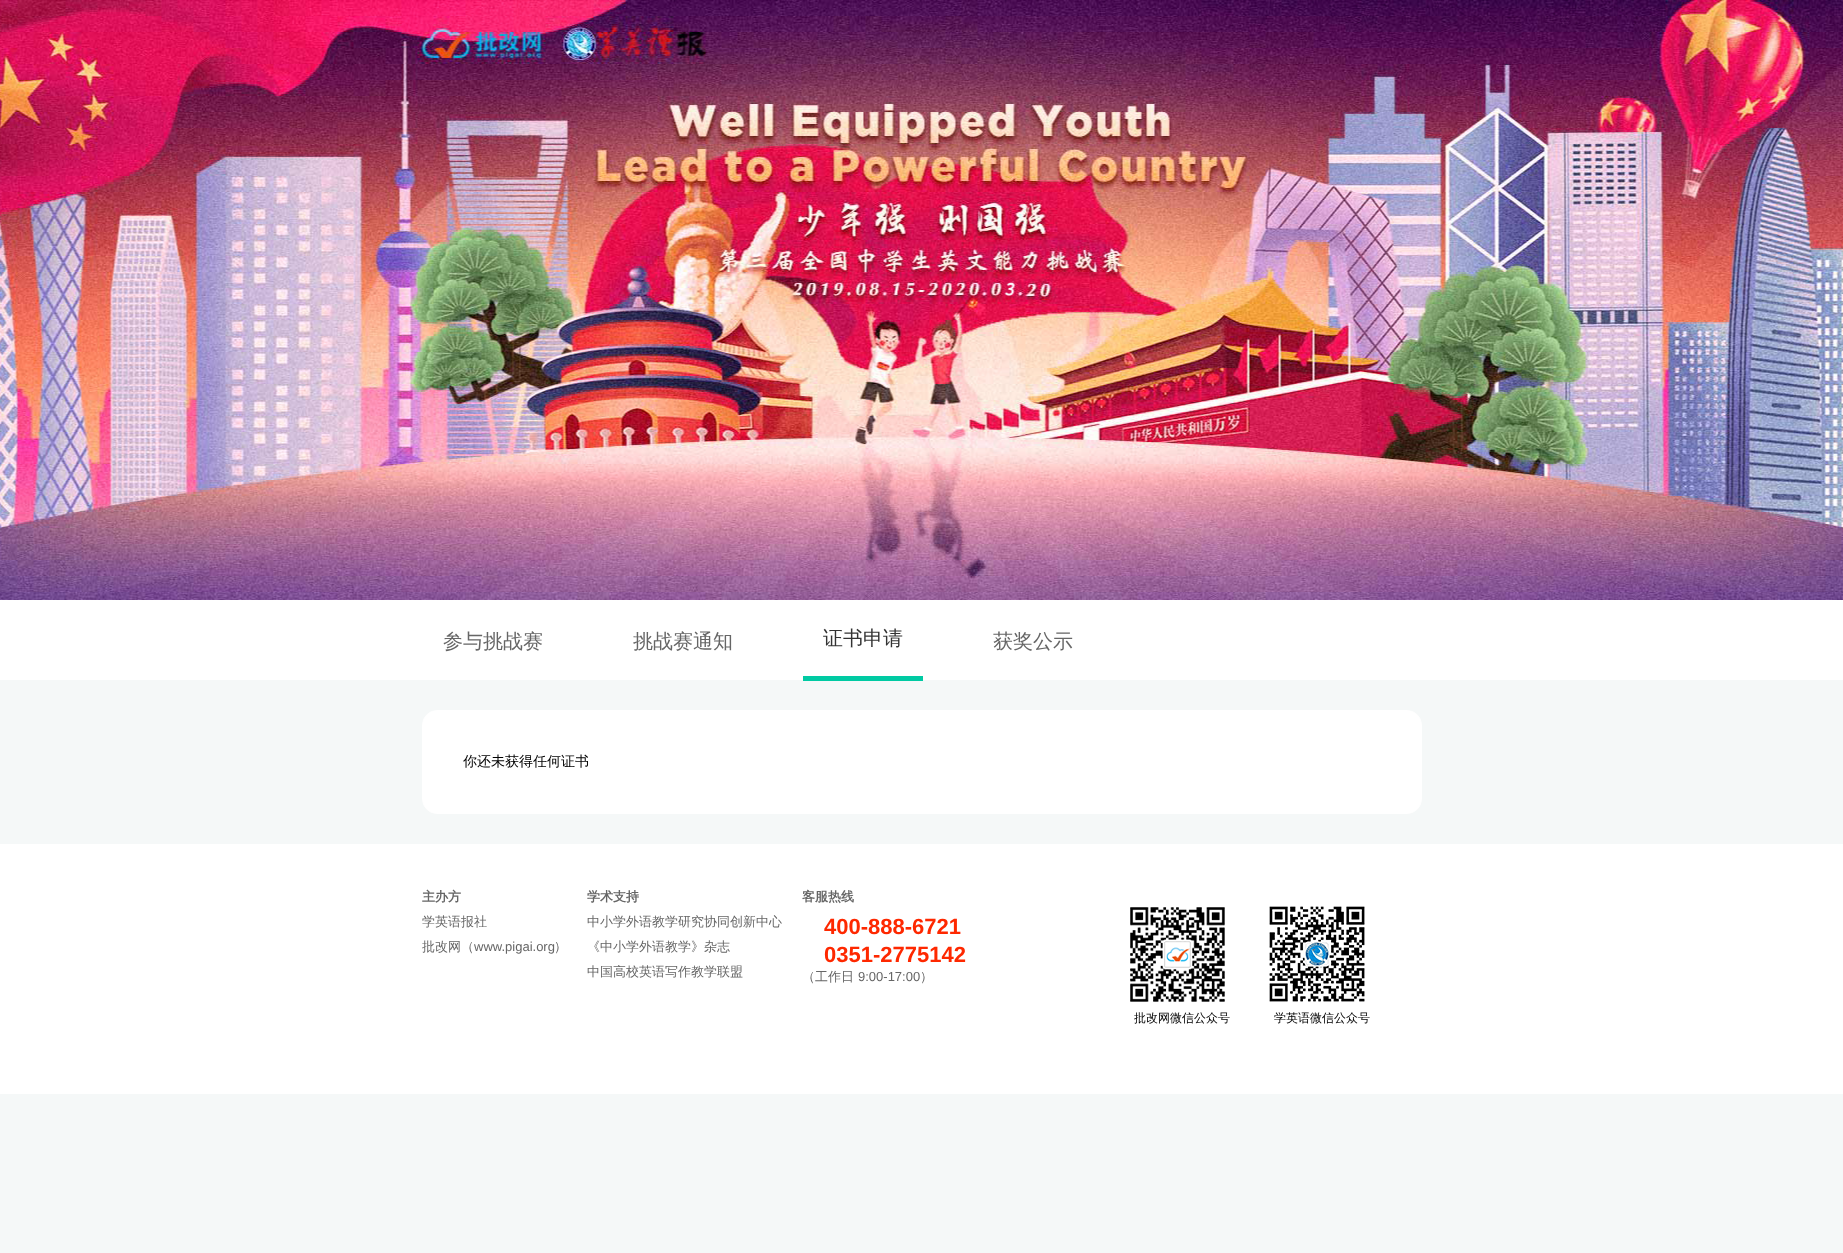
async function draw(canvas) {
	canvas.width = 1843;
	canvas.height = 1253;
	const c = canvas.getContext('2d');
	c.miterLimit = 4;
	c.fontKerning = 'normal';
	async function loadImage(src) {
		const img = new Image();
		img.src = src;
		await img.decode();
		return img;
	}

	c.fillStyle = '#f5f8f8';
	c.fillRect(0, 0, 1843, 1253);
	c.drawImage(await loadImage('img1.png'), 0, 0, 1843, 600);
	c.fillStyle = '#fff';
	c.fillRect(0, 600, 1843, 80);
	c.font = '500 20px WenQuanYi Zen Hei';
	c.fillStyle = '#666';
	c.fillText('参与挑战赛', 443, 648);
	c.fillText('挑战赛通知', 633, 648);
	c.fillStyle = '#00caa3';
	c.fillRect(803, 676, 120, 5);
	c.fillStyle = '#333';
	c.fillText('证书申请', 823, 645);
	c.fillStyle = '#666';
	c.fillText('获奖公示', 993, 648);
	c.fillStyle = '#fff';
	c.beginPath();
	c.roundRect(422.5, 710.5, 999, 103, 14.5);
	c.fill();
	c.strokeStyle = '#fff';
	c.stroke();
	c.font = '500 14px WenQuanYi Zen Hei';
	c.fillStyle = '#000';
	c.fillText('你还未获得任何证书', 463, 766);
	c.fillStyle = '#fff';
	c.fillRect(0, 844, 1843, 250);
	c.font = 'bold 13px WenQuanYi Zen Hei';
	c.fillStyle = '#666';
	c.fillText('主办方', 422, 901);
	c.font = '500 13px WenQuanYi Zen Hei';
	c.fillText('学英语报社', 422, 926);
	c.fillText('批改网（', 422, 951);
	c.font = '13px Liberation Sans';
	c.fillText('www.pigai.org', 474, 951);
	c.font = '500 13px WenQuanYi Zen Hei';
	c.fillText('）', 554, 951);
	c.font = 'bold 13px WenQuanYi Zen Hei';
	c.fillText('学术支持', 587, 901);
	c.font = '500 13px WenQuanYi Zen Hei';
	for (const [text, x, y] of [
		['中小学外语教学研究协同创新中心', 587, 926],
		['《中小学外语教学》杂志', 587, 951],
		['中国高校英语写作教学联盟', 587, 976],
	]) {
		c.fillText(text, x, y);
	}
	c.font = 'bold 13px WenQuanYi Zen Hei';
	c.fillText('客服热线', 802, 901);
	c.font = 'bold 22px Liberation Sans';
	c.fillStyle = '#fe2800';
	c.fillText('400-888-6721', 824, 934);
	c.fillText('0351-2775142', 824, 962);
	c.font = '500 13px WenQuanYi Zen Hei';
	c.fillStyle = '#666';
	c.fillText('（工作日', 802, 981);
	c.font = '13px Liberation Sans';
	c.fillText('9:00-17:00', 858, 981);
	c.font = '500 13px WenQuanYi Zen Hei';
	c.fillText('）', 920, 981);
	c.drawImage(await loadImage('img2.png'), 1130, 907, 95, 95);
	c.font = '500 12px WenQuanYi Zen Hei';
	c.fillStyle = '#000';
	c.fillText('批改网微信公众号', 1134, 1022);
	c.drawImage(await loadImage('img3.png'), 1269, 906, 96, 96);
	c.fillText('学英语微信公众号', 1274, 1022);
}

draw(document.querySelector('canvas'));
